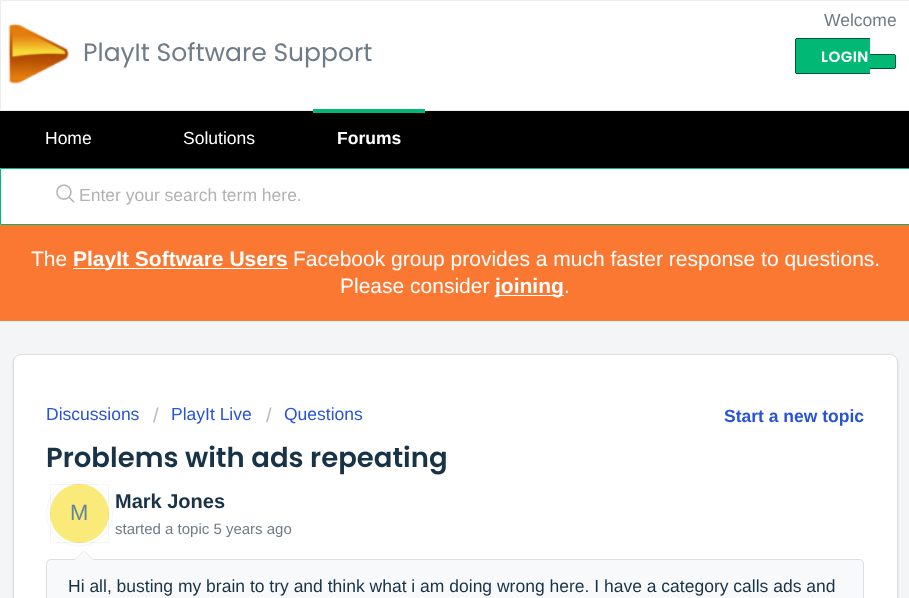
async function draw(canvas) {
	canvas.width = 909;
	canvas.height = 598;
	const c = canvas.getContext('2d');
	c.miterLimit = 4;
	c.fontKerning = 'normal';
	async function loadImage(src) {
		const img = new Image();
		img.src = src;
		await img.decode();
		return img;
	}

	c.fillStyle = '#f3f5f7';
	c.fillRect(0, 0, 909, 598);
	c.fillStyle = '#fff';
	c.beginPath();
	c.rect(0.5, 0.5, 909, 110);
	c.fill();
	c.strokeStyle = '#ebeef0';
	c.stroke();
	c.drawImage(await loadImage('img1.png'), 8, 23, 61, 61);
	c.font = '25px Poppins';
	c.fillStyle = '#6f7c87';
	c.fillText('PlayIt Software Support', 83, 61);
	c.font = '17.5px Liberation Sans';
	c.fillText('Welcome', 824, 26);
	c.fillStyle = '#02b875';
	c.beginPath();
	c.roundRect(795, 38, 75, 36, [2.5, 0, 0, 2.5]);
	c.fill();
	c.letterSpacing = '0.5px';
	c.font = '600 15px Poppins';
	c.fillStyle = '#fff';
	c.fillText('LOGIN', 821, 62);
	for (const [x, y, w, h, color] of [
		[796, 38, 74, 1, '#015335'],
		[796, 73, 74, 1, '#015335'],
		[795, 39, 1, 34, '#015335'],
	]) {
		c.fillStyle = color;
		c.fillRect(x, y, w, h);
	}
	c.fillStyle = '#02b875';
	c.beginPath();
	c.roundRect(870, 54, 26, 15, [0, 2.5, 2.5, 0]);
	c.fill();
	for (const [x, y, w, h, color] of [
		[870, 54, 25, 1, '#015335'],
		[895, 55, 1, 13, '#015335'],
		[870, 68, 25, 1, '#015335'],
		[0, 111, 909, 57, '#000'],
	]) {
		c.fillStyle = color;
		c.fillRect(x, y, w, h);
	}
	c.letterSpacing = '0px';
	c.font = '17.5px Liberation Sans';
	c.fillStyle = '#fff';
	c.fillText('Home', 45, 144);
	c.fillText('Solutions', 183, 144);
	c.fillStyle = '#02b875';
	c.fillRect(313, 109, 112, 4);
	c.font = 'bold 17.5px Liberation Sans';
	c.fillStyle = '#fff';
	c.fillText('Forums', 337, 144);
	c.beginPath();
	c.rect(0.5, 168.5, 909, 56);
	c.fill();
	c.strokeStyle = '#02b875';
	c.stroke();
	c.drawImage(await loadImage('img2.png'), 56, 184, 19, 19);
	c.font = '17.5px Liberation Sans';
	c.fillStyle = '#b2b2b2';
	c.fillText('Enter your search term here.', 79, 201);
	c.fillStyle = '#fb7832';
	c.fillRect(0, 225, 909, 96);
	c.font = '21px Liberation Sans';
	c.fillStyle = '#fff';
	c.fillText('The', 31, 266);
	c.fillRect(73, 268, 215, 1);
	c.font = 'bold 21px Liberation Sans';
	c.fillText('PlayIt Software Users', 73, 266);
	c.font = '21px Liberation Sans';
	c.fillText('Facebook group provides a much faster response to questions.', 293, 266);
	c.fillText('Please consider', 340, 293);
	c.fillRect(495, 295, 69, 1);
	c.font = 'bold 21px Liberation Sans';
	c.fillText('joining', 495, 293);
	c.font = '21px Liberation Sans';
	c.fillText('.', 564, 293);
	c.fillStyle = '#f8f9fa';
	c.fillRect(13, 354, 885, 8);
	c.fillStyle = '#3f3f4426';
	c.filter = 'blur(1px)';
	c.beginPath();
	c.roundRect(13, 355, 885, 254, 8);
	c.fill();
	c.filter = 'none';
	c.fillStyle = '#fff';
	c.beginPath();
	c.roundRect(13.5, 354.5, 884, 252, 7.5);
	c.fill();
	c.strokeStyle = '#dadfe3';
	c.stroke();
	c.font = '17.5px Liberation Sans';
	c.fillStyle = '#2753d7';
	c.fillText('Discussions', 46, 420);
	c.font = '20px Liberation Sans';
	c.fillStyle = '#bbb';
	c.fillText('/', 153, 422);
	c.font = '17.5px Liberation Sans';
	c.fillStyle = '#2753d7';
	c.fillText('PlayIt Live', 171, 420);
	c.font = '20px Liberation Sans';
	c.fillStyle = '#bbb';
	c.fillText('/', 266, 422);
	c.font = '17.5px Liberation Sans';
	c.fillStyle = '#2753d7';
	c.fillText('Questions', 284, 420);
	c.font = 'bold 17.5px Liberation Sans';
	c.fillText('Start a new topic', 724, 422);
	c.font = '600 27.5px Poppins';
	c.fillStyle = '#183247';
	c.fillText('Problems with ads repeating', 46, 467);
	c.beginPath();
	c.roundRect(46.5, 480.5, 66, 65, 32.5);
	c.strokeStyle = '#f3f5f7';
	c.stroke();
	c.fillStyle = '#faea79';
	c.beginPath();
	c.arc(79.5, 513.5, 29.5, 0, 2 * Math.PI);
	c.fill();
	c.strokeStyle = '#0000000a';
	c.strokeRect(50.5, 484.5, 58, 58);
	c.font = '22px Liberation Sans';
	c.fillStyle = '#638699';
	c.fillText('M', 70, 520);
	c.fillStyle = '#f8f9fa';
	c.beginPath();
	c.roundRect(46.5, 559.5, 817, 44, 4.5);
	c.fill();
	c.strokeStyle = '#dadfe3';
	c.stroke();
	c.fillStyle = '#ebebeb';
	c.beginPath();
	c.moveTo(94, 560);
	c.lineTo(74, 560);
	c.lineTo(84, 550);
	c.closePath();
	c.fill();
	c.fillStyle = '#fafafa';
	c.beginPath();
	c.moveTo(92.5, 560);
	c.lineTo(75, 560);
	c.lineTo(84, 551);
	c.closePath();
	c.fill();
	c.font = 'bold 20px Liberation Sans';
	c.fillStyle = '#183247';
	c.fillText('Mark Jones', 115, 508);
	c.font = '15px Liberation Sans';
	c.fillStyle = '#6f7c87';
	c.fillText('started a topic 5 years ago', 115, 534);
	c.font = '17.5px Liberation Sans';
	c.fillStyle = '#183247';
	c.fillText('Hi all, busting my brain to try and think what i am doing wrong here. I have a category calls ads and', 68, 592);
}

draw(document.querySelector('canvas'));
